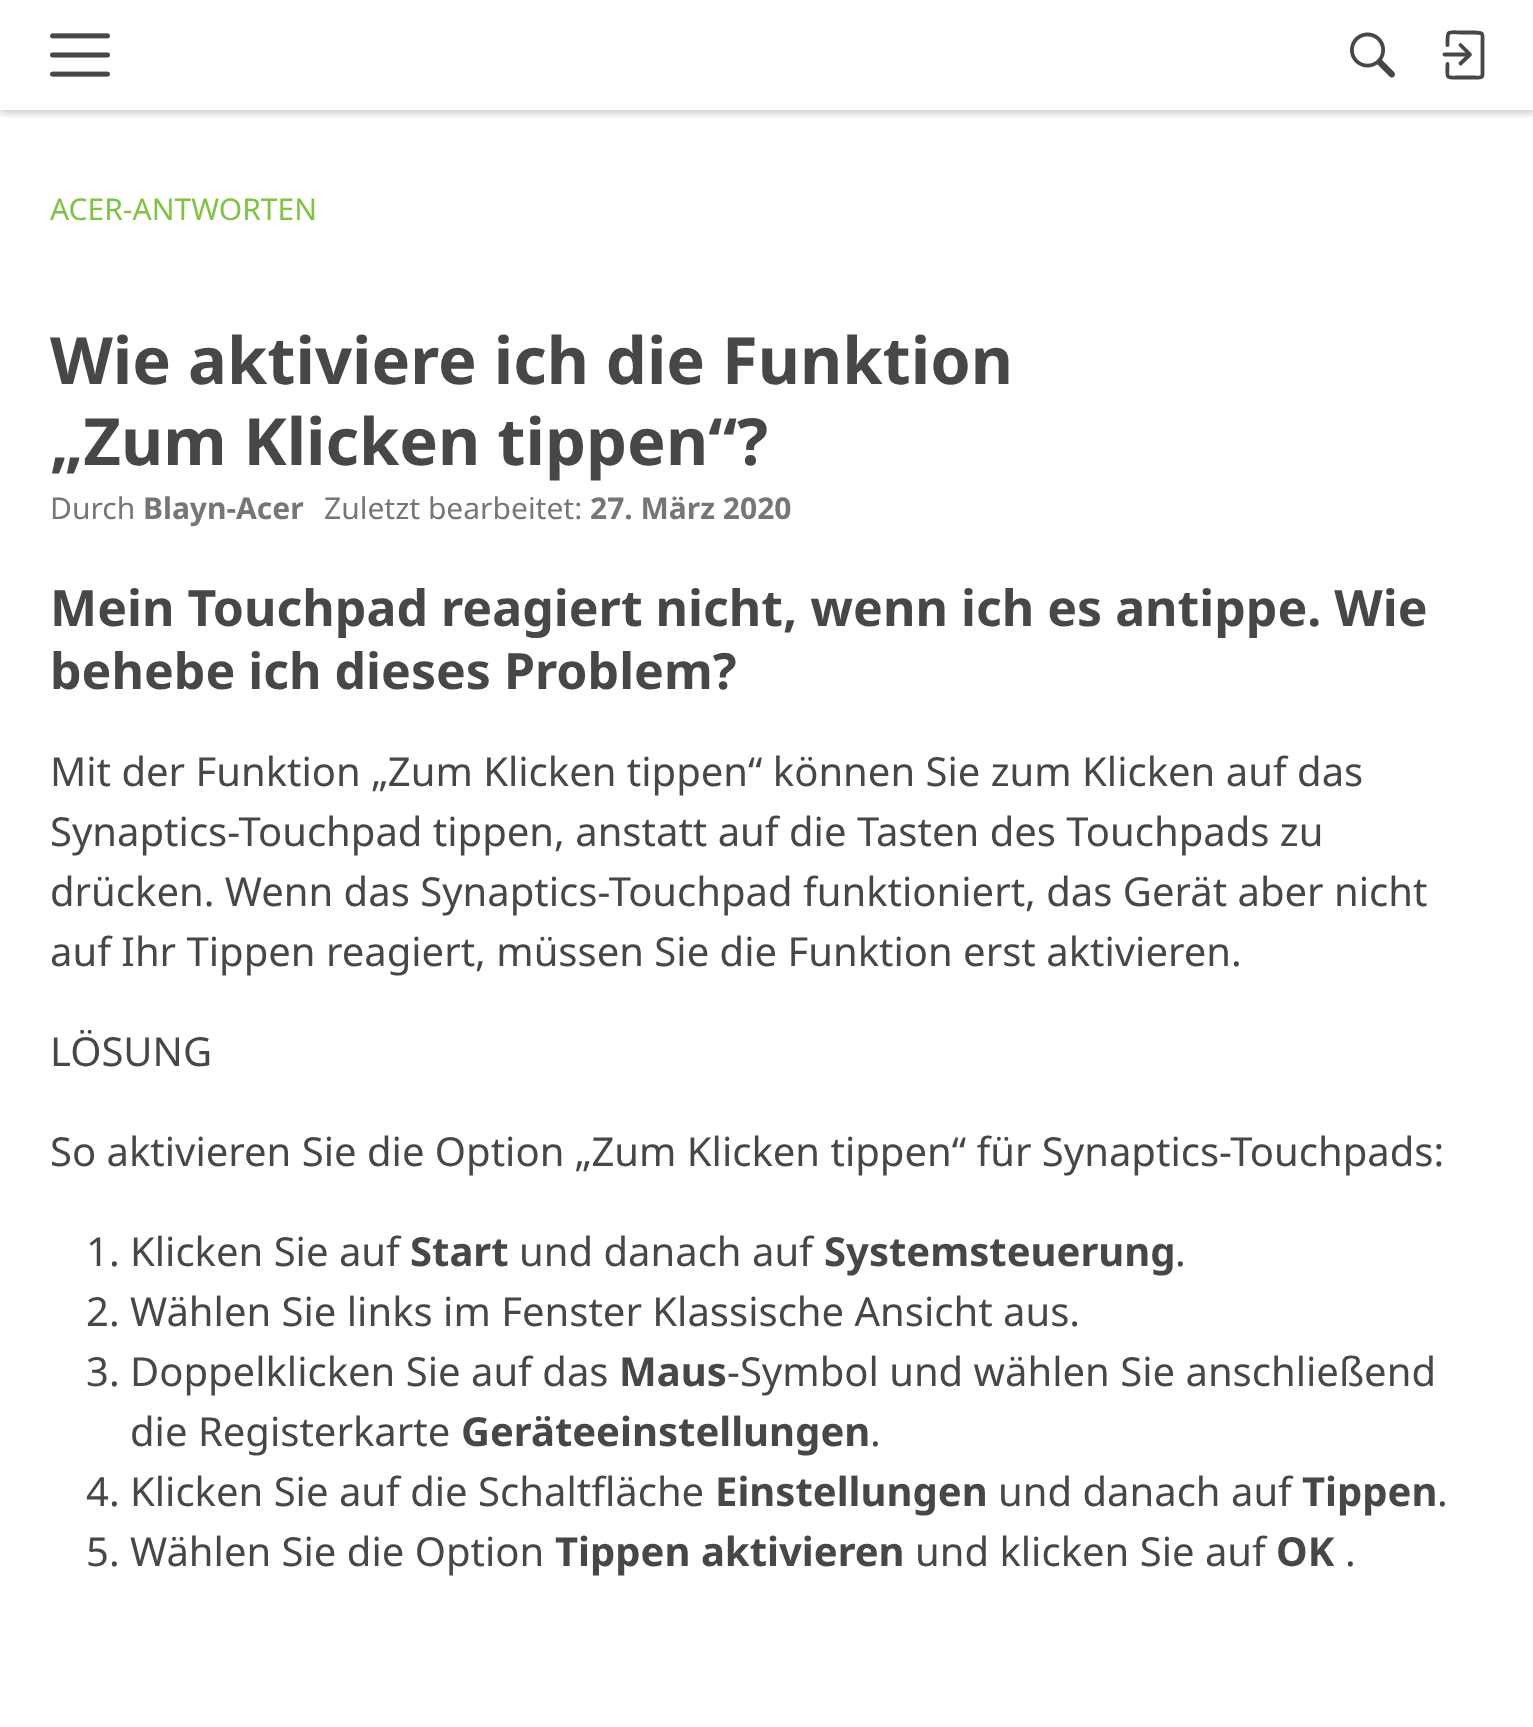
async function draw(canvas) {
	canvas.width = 1533;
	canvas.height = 1727;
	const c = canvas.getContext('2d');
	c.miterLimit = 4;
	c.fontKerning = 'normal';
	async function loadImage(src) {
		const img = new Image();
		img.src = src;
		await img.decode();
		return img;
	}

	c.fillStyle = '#fff';
	c.fillRect(0, 0, 1533, 1727);
	c.save();
	c.beginPath();
	c.rect(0, 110, 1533, 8);
	c.clip();
	c.fillStyle = '#00000038';
	c.filter = 'blur(4px)';
	c.beginPath();
	c.rect(0, 3, 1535, 110);
	c.fill();
	c.filter = 'none';
	c.restore();
	c.drawImage(await loadImage('img1.png'), 50, 33, 60, 44);
	c.drawImage(await loadImage('img2.png'), 1350, 32, 45, 46);
	c.beginPath();
	c.moveTo(1460.5, 63.5);
	c.lineTo(1470, 54.5);
	c.lineTo(1460.5, 45);
	c.strokeStyle = '#474747';
	c.lineWidth = 3.8;
	c.lineCap = 'round';
	c.lineJoin = 'round';
	c.stroke();
	c.beginPath();
	c.moveTo(1469, 54.5);
	c.lineTo(1444.5, 54.5);
	c.lineJoin = 'miter';
	c.stroke();
	c.beginPath();
	c.moveTo(1447.5, 45);
	c.bezierCurveTo(1447.5, 29, 1446.5, 32.5, 1465, 32.5);
	c.lineTo(1474.5, 32.5);
	c.bezierCurveTo(1484, 32.5, 1482.5, 33.5, 1482.5, 43);
	c.lineTo(1482.5, 74.5);
	c.bezierCurveTo(1482.5, 78.5, 1478.5, 77.5, 1475.5, 77.5);
	c.lineTo(1460.5, 77.5);
	c.bezierCurveTo(1444.5, 77.5, 1447.5, 79, 1447.5, 64);
	c.lineJoin = 'round';
	c.stroke();
	c.font = '30px Noto Sans';
	c.fillStyle = '#80c343';
	c.fillText('ACER-ANTWORTEN', 50, 220);
	c.font = 'bold 65px Noto Sans';
	c.fillStyle = '#474747';
	c.fillText('Wie aktiviere ich die Funktion', 50, 384);
	c.fillText('„Zum Klicken tippen“?', 50, 465);
	c.font = '30px Noto Sans';
	c.fillStyle = '#767676';
	c.fillText('Durch', 50, 519);
	c.font = 'bold 30px Noto Sans';
	c.fillText('Blayn-Acer', 143, 519);
	c.font = '30px Noto Sans';
	c.fillText('Zuletzt bearbeitet:', 324, 519);
	c.font = 'bold 30px Noto Sans';
	c.fillText('27. März 2020', 590, 519);
	c.font = 'bold 50px Noto Sans';
	c.fillStyle = '#474747';
	c.fillText('Mein Touchpad reagiert nicht, wenn ich es antippe. Wie', 50, 626);
	c.fillText('behebe ich dieses Problem?', 50, 689);
	c.font = '40px Noto Sans';
	for (const [text, x, y] of [
		['Mit der Funktion „Zum Klicken tippen“ können Sie zum Klicken auf das', 50, 786],
		['Synaptics-Touchpad tippen, anstatt auf die Tasten des Touchpads zu', 50, 846],
		['drücken. Wenn das Synaptics-Touchpad funktioniert, das Gerät aber nicht', 50, 906],
		['auf Ihr Tippen reagiert, müssen Sie die Funktion erst aktivieren.', 50, 966],
		['LÖSUNG', 50, 1066],
		['So aktivieren Sie die Option „Zum Klicken tippen“ für Synaptics-Touchpads:', 50, 1166],
		['1. Klicken Sie auf', 86, 1266],
	]) {
		c.fillText(text, x, y);
	}
	c.font = 'bold 40px Noto Sans';
	c.fillText('Start', 410, 1266);
	c.font = '40px Noto Sans';
	c.fillText('und danach auf', 519, 1266);
	c.font = 'bold 40px Noto Sans';
	c.fillText('Systemsteuerung', 824, 1266);
	c.font = '40px Noto Sans';
	for (const [text, x, y] of [
		['.', 1175, 1266],
		['2. Wählen Sie links im Fenster Klassische Ansicht aus.', 86, 1326],
		['3. Doppelklicken Sie auf das', 86, 1386],
	]) {
		c.fillText(text, x, y);
	}
	c.font = 'bold 40px Noto Sans';
	c.fillText('Maus', 619, 1386);
	c.font = '40px Noto Sans';
	c.fillText('-Symbol und wählen Sie anschließend', 727, 1386);
	c.fillText('die Registerkarte', 130, 1446);
	c.font = 'bold 40px Noto Sans';
	c.fillText('Geräteeinstellungen', 461, 1446);
	c.font = '40px Noto Sans';
	c.fillText('.', 870, 1446);
	c.fillText('4. Klicken Sie auf die Schaltfläche', 86, 1506);
	c.font = 'bold 40px Noto Sans';
	c.fillText('Einstellungen', 715, 1506);
	c.font = '40px Noto Sans';
	c.fillText('und danach auf', 998, 1506);
	c.font = 'bold 40px Noto Sans';
	c.fillText('Tippen', 1302, 1506);
	c.font = '40px Noto Sans';
	c.fillText('.', 1437, 1506);
	c.fillText('5. Wählen Sie die Option', 86, 1566);
	c.font = 'bold 40px Noto Sans';
	c.fillText('Tippen aktivieren', 555, 1566);
	c.font = '40px Noto Sans';
	c.fillText('und klicken Sie auf', 915, 1566);
	c.font = 'bold 40px Noto Sans';
	c.fillText('OK', 1276, 1566);
	c.font = '40px Noto Sans';
	c.fillText('.', 1345, 1566);
}

draw(document.querySelector('canvas'));
